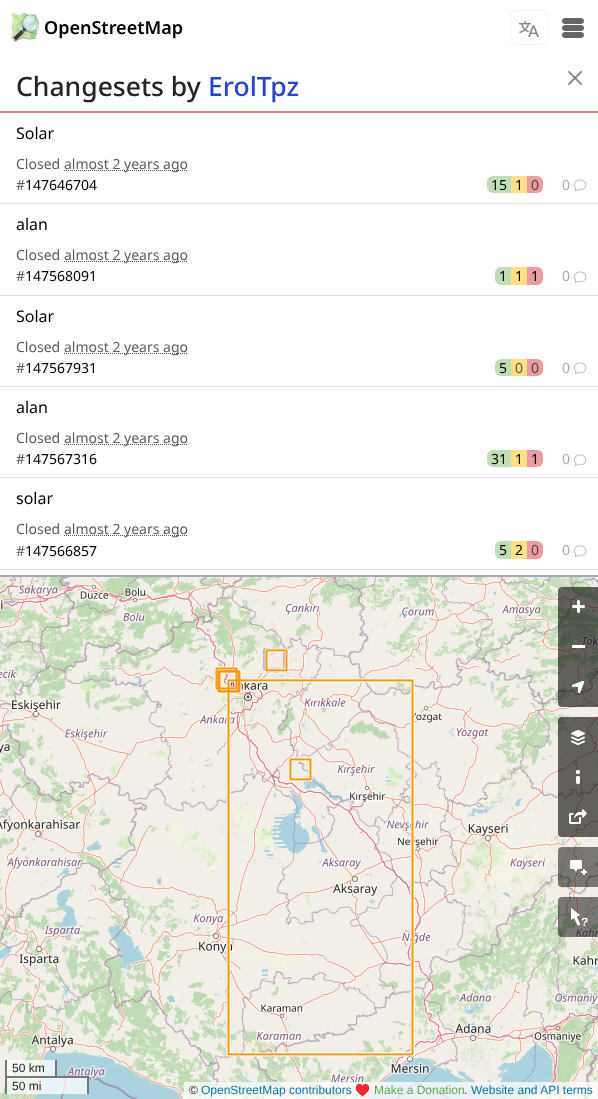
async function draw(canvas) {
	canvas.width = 598;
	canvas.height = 1099;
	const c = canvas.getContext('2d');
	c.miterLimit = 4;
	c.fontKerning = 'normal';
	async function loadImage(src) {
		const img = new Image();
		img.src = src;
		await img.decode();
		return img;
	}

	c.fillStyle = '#fff';
	c.fillRect(0, 0, 598, 1099);
	c.drawImage(await loadImage('img1.png'), 11, 13, 28, 29);
	c.font = '600 18px Noto Sans';
	c.fillStyle = '#000';
	c.fillText('OpenStreetMap', 44, 34);
	c.beginPath();
	c.roundRect(510.5, 10.5, 37, 34, 5.5);
	c.strokeStyle = '#f3f3f3';
	c.stroke();
	c.drawImage(await loadImage('img2.png'), 519, 21, 20, 16);
	c.drawImage(await loadImage('img3.png'), 562, 18, 22, 20);
	c.font = '500 26.5px Noto Sans';
	c.fillStyle = '#212529';
	c.fillText('Changesets by', 16, 96);
	c.fillStyle = '#24d';
	c.fillText('ErolTpz', 208, 96);
	c.fillStyle = '#d98c80';
	c.fillRect(0, 111, 598, 2);
	c.fillStyle = '#dee2e6';
	c.fillRect(0, 203, 598, 1);
	c.font = '16px Noto Sans';
	c.fillStyle = '#000';
	c.fillText('Solar', 16, 139);
	c.font = '14px Noto Sans';
	c.fillStyle = '#595c5f';
	c.fillText('Closed', 16, 169);
	c.beginPath();
	c.moveTo(64, 170.5);
	c.lineTo(188, 170.5);
	c.strokeStyle = '#595c5f';
	c.setLineDash([1, 1]);
	c.stroke();
	c.fillText('almost 2 years ago', 64, 169);
	c.fillText('#', 16, 190);
	c.fillStyle = '#000';
	c.fillText('147646704', 25, 190);
	c.fillStyle = '#bfdeb7';
	c.beginPath();
	c.roundRect(487, 176, 24, 17, [6, 0, 0, 6]);
	c.fill();
	c.fillStyle = '#000';
	c.fillText('15', 491, 190);
	c.fillStyle = '#ffe083';
	c.fillRect(511, 176, 16, 17);
	c.fillStyle = '#000';
	c.fillText('1', 515, 190);
	c.fillStyle = '#ee9aa2';
	c.beginPath();
	c.roundRect(527, 176, 16, 17, [0, 6, 6, 0]);
	c.fill();
	c.fillStyle = '#544247';
	c.fillText('0', 531, 190);
	c.fillStyle = '#acadaf';
	c.fillText('0', 562, 190);
	c.drawImage(await loadImage('img4.png'), 574, 179, 13, 12);
	c.fillStyle = '#dee2e6';
	c.fillRect(0, 295, 598, 1);
	c.font = '16px Noto Sans';
	c.fillStyle = '#000';
	c.fillText('alan', 16, 230);
	c.font = '14px Noto Sans';
	c.fillStyle = '#595c5f';
	c.fillText('Closed', 16, 260);
	c.beginPath();
	c.moveTo(64, 261.5);
	c.lineTo(188, 261.5);
	c.stroke();
	c.fillText('almost 2 years ago', 64, 260);
	c.fillText('#', 16, 281);
	c.fillStyle = '#000';
	c.fillText('147568091', 25, 281);
	c.fillStyle = '#bfdeb7';
	c.beginPath();
	c.roundRect(495, 267, 16, 18, [6, 0, 0, 6]);
	c.fill();
	c.fillStyle = '#000';
	c.fillText('1', 499, 281);
	c.fillStyle = '#ffe083';
	c.fillRect(511, 267, 16, 18);
	c.fillStyle = '#000';
	c.fillText('1', 515, 281);
	c.fillStyle = '#ee9aa2';
	c.beginPath();
	c.roundRect(527, 267, 16, 18, [0, 6, 6, 0]);
	c.fill();
	c.fillStyle = '#000';
	c.fillText('1', 531, 281);
	c.fillStyle = '#acadaf';
	c.fillText('0', 562, 281);
	c.drawImage(await loadImage('img4.png'), 574, 271, 13, 12);
	c.fillStyle = '#dee2e6';
	c.fillRect(0, 386, 598, 1);
	c.font = '16px Noto Sans';
	c.fillStyle = '#000';
	c.fillText('Solar', 16, 322);
	c.font = '14px Noto Sans';
	c.fillStyle = '#595c5f';
	c.fillText('Closed', 16, 352);
	c.beginPath();
	c.moveTo(64, 353.5);
	c.lineTo(188, 353.5);
	c.stroke();
	c.fillText('almost 2 years ago', 64, 352);
	c.fillText('#', 16, 373);
	c.fillStyle = '#000';
	c.fillText('147567931', 25, 373);
	c.fillStyle = '#bfdeb7';
	c.beginPath();
	c.roundRect(495, 359, 16, 17, [6, 0, 0, 6]);
	c.fill();
	c.fillStyle = '#000';
	c.fillText('5', 499, 373);
	c.fillStyle = '#ffe083';
	c.fillRect(511, 359, 16, 17);
	c.fillStyle = '#595440';
	c.fillText('0', 515, 373);
	c.fillStyle = '#ee9aa2';
	c.beginPath();
	c.roundRect(527, 359, 16, 17, [0, 6, 6, 0]);
	c.fill();
	c.fillStyle = '#544247';
	c.fillText('0', 531, 373);
	c.fillStyle = '#acadaf';
	c.fillText('0', 562, 373);
	c.drawImage(await loadImage('img4.png'), 574, 362, 13, 12);
	c.fillStyle = '#dee2e6';
	c.fillRect(0, 477, 598, 1);
	c.font = '16px Noto Sans';
	c.fillStyle = '#000';
	c.fillText('alan', 16, 413);
	c.font = '14px Noto Sans';
	c.fillStyle = '#595c5f';
	c.fillText('Closed', 16, 443);
	c.beginPath();
	c.moveTo(64, 444.5);
	c.lineTo(188, 444.5);
	c.stroke();
	c.fillText('almost 2 years ago', 64, 443);
	c.fillText('#', 16, 464);
	c.fillStyle = '#000';
	c.fillText('147567316', 25, 464);
	c.fillStyle = '#bfdeb7';
	c.beginPath();
	c.roundRect(487, 450, 24, 17, [6, 0, 0, 6]);
	c.fill();
	c.fillStyle = '#000';
	c.fillText('31', 491, 464);
	c.fillStyle = '#ffe083';
	c.fillRect(511, 450, 16, 17);
	c.fillStyle = '#000';
	c.fillText('1', 515, 464);
	c.fillStyle = '#ee9aa2';
	c.beginPath();
	c.roundRect(527, 450, 16, 17, [0, 6, 6, 0]);
	c.fill();
	c.fillStyle = '#000';
	c.fillText('1', 531, 464);
	c.fillStyle = '#acadaf';
	c.fillText('0', 562, 464);
	c.drawImage(await loadImage('img4.png'), 574, 454, 13, 12);
	c.fillStyle = '#dee2e6';
	c.fillRect(0, 569, 598, 1);
	c.font = '16px Noto Sans';
	c.fillStyle = '#000';
	c.fillText('solar', 16, 504);
	c.font = '14px Noto Sans';
	c.fillStyle = '#595c5f';
	c.fillText('Closed', 16, 534);
	c.beginPath();
	c.moveTo(64, 535.5);
	c.lineTo(188, 535.5);
	c.stroke();
	c.fillText('almost 2 years ago', 64, 534);
	c.fillText('#', 16, 556);
	c.fillStyle = '#000';
	c.fillText('147566857', 25, 556);
	c.fillStyle = '#bfdeb7';
	c.beginPath();
	c.roundRect(495, 541, 16, 18, [6, 0, 0, 6]);
	c.fill();
	c.fillStyle = '#000';
	c.fillText('5', 499, 555);
	c.fillStyle = '#ffe083';
	c.fillRect(511, 541, 16, 18);
	c.fillStyle = '#000';
	c.fillText('2', 515, 555);
	c.fillStyle = '#ee9aa2';
	c.beginPath();
	c.roundRect(527, 541, 16, 18, [0, 6, 6, 0]);
	c.fill();
	c.fillStyle = '#544247';
	c.fillText('0', 531, 555);
	c.fillStyle = '#acadaf';
	c.fillText('0', 562, 555);
	c.drawImage(await loadImage('img4.png'), 574, 545, 13, 12);
	c.fillStyle = '#a6a6bf';
	c.fillRect(0, 575, 598, 2);
	c.drawImage(await loadImage('img5.png'), 568, 71, 14, 14);
	c.drawImage(await loadImage('img6.png'), 0, 577, 74, 249);
	c.drawImage(await loadImage('img7.png'), 74, 577, 256, 249);
	c.drawImage(await loadImage('img8.png'), 330, 577, 256, 249);
	c.drawImage(await loadImage('img9.png'), 586, 577, 12, 249);
	c.drawImage(await loadImage('img10.png'), 0, 826, 74, 256);
	c.drawImage(await loadImage('img11.png'), 74, 826, 256, 256);
	c.drawImage(await loadImage('img12.png'), 330, 826, 256, 256);
	c.drawImage(await loadImage('img13.png'), 586, 826, 12, 256);
	c.drawImage(await loadImage('img14.png'), 0, 1082, 74, 17);
	c.drawImage(await loadImage('img15.png'), 74, 1082, 256, 17);
	c.drawImage(await loadImage('img16.png'), 330, 1082, 256, 17);
	c.drawImage(await loadImage('img17.png'), 586, 1082, 12, 17);
	c.drawImage(await loadImage('img18.png'), 214, 648, 201, 409);
	c.fillStyle = '#00000099';
	c.beginPath();
	c.roundRect(558, 587, 40, 40, [4, 0, 0, 0]);
	c.fill();
	c.drawImage(await loadImage('img19.png'), 572, 600, 13, 13);
	c.fillRect(558, 627, 40, 40);
	c.fillStyle = '#fff';
	c.fillRect(572, 645, 13, 3);
	c.fillStyle = '#00000099';
	c.beginPath();
	c.roundRect(558, 667, 40, 40, [0, 0, 0, 4]);
	c.fill();
	c.drawImage(await loadImage('img20.png'), 572, 681, 12, 12);
	c.beginPath();
	c.roundRect(558, 717, 40, 40, [4, 0, 0, 0]);
	c.fill();
	c.drawImage(await loadImage('img21.png'), 571, 730, 14, 15);
	c.fillRect(558, 757, 40, 40);
	c.drawImage(await loadImage('img22.png'), 576, 770, 4, 14);
	c.beginPath();
	c.roundRect(558, 797, 40, 40, [0, 0, 0, 4]);
	c.fill();
	c.drawImage(await loadImage('img23.png'), 569, 809, 18, 15);
	c.fillStyle = '#00000080';
	c.beginPath();
	c.roundRect(558, 847, 40, 40, [4, 0, 0, 4]);
	c.fill();
	c.drawImage(await loadImage('img24.png'), 570, 860, 17, 15);
	c.beginPath();
	c.roundRect(558, 897, 40, 40, [4, 0, 0, 4]);
	c.fill();
	c.drawImage(await loadImage('img25.png'), 571, 908, 9, 18);
	c.font = 'bold 12px Liberation Sans';
	c.fillStyle = '#fff';
	c.fillText('?', 581, 926);
	for (const [x, y, w, h, color] of [
		[7, 1060, 48, 16, '#ffffffbf'],
		[55, 1060, 2, 18, '#777'],
		[5, 1060, 2, 18, '#777'],
	]) {
		c.fillStyle = color;
		c.fillRect(x, y, w, h);
	}
	c.font = '12px Liberation Sans';
	c.fillStyle = '#212529';
	c.fillText('50 km', 12, 1072);
	for (const [x, y, w, h, color] of [
		[7, 1078, 80, 16, '#ffffffbf'],
		[5, 1076, 84, 2, '#777'],
		[87, 1076, 2, 18, '#777'],
		[5, 1076, 2, 18, '#777'],
	]) {
		c.fillStyle = color;
		c.fillRect(x, y, w, h);
	}
	c.fillStyle = '#212529';
	c.fillText('50 mi', 12, 1090);
	c.fillStyle = '#ffffffbf';
	c.fillRect(184, 1082, 414, 17);
	c.fillStyle = '#212529';
	c.fillText('©', 189, 1094);
	c.fillStyle = '#0078a8';
	c.fillText('OpenStreetMap contributors', 201, 1094);
	c.font = '12px Noto Color Emoji';
	c.fillStyle = '#212529';
	c.fillText('♥️', 355, 1094);
	c.font = '12px Liberation Sans';
	c.fillStyle = '#60a94f';
	c.fillText('Make a Donation', 374, 1094);
	c.fillStyle = '#212529';
	c.fillText('.', 464, 1094);
	c.fillStyle = '#0078a8';
	c.fillText('Website and API terms', 471, 1094);
}

draw(document.querySelector('canvas'));
